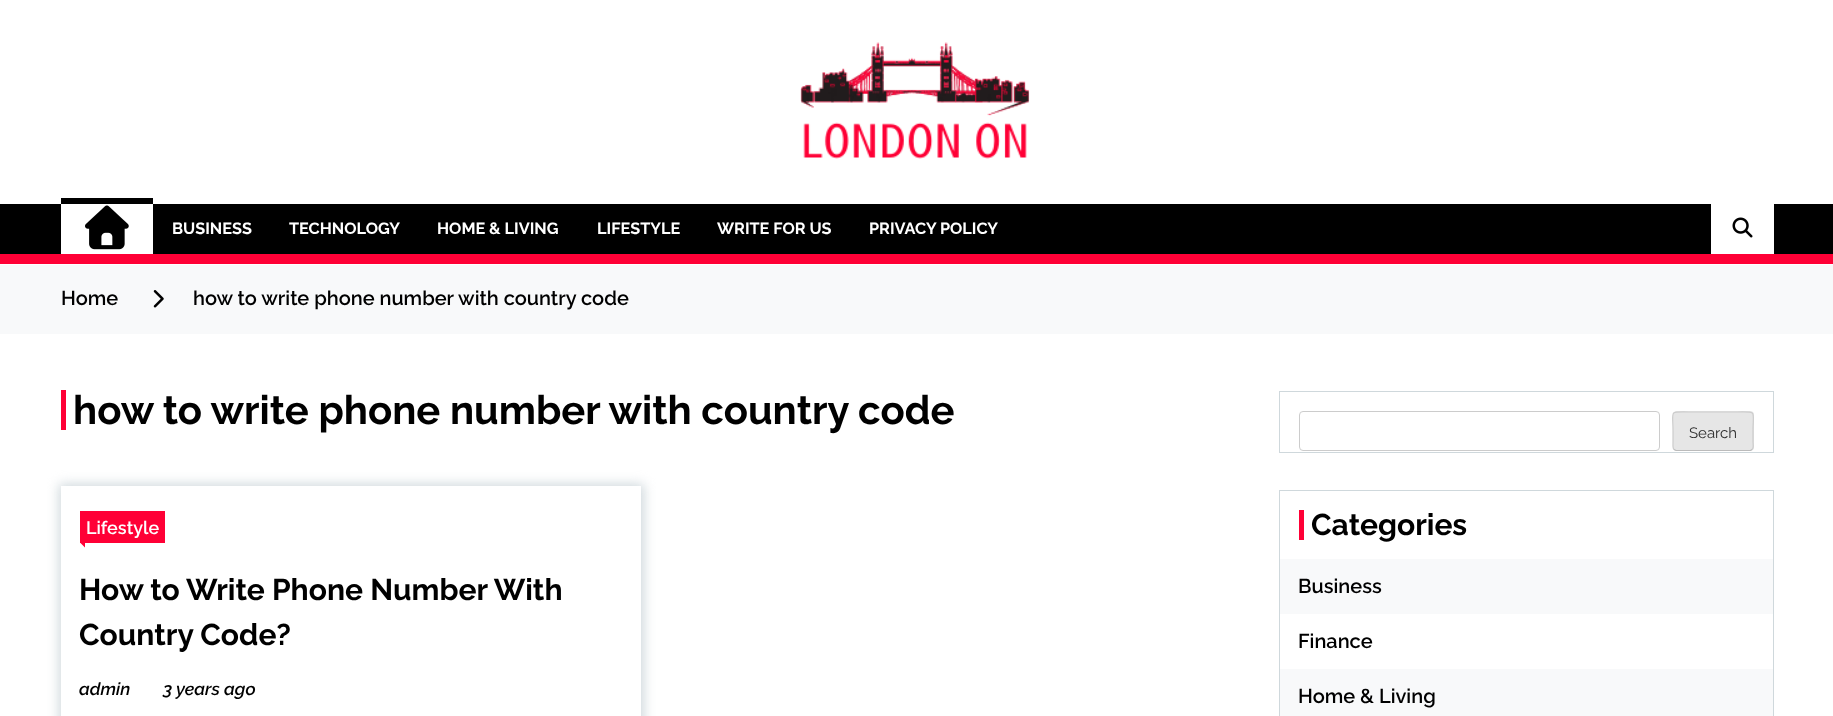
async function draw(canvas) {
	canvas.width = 1833;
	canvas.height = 716;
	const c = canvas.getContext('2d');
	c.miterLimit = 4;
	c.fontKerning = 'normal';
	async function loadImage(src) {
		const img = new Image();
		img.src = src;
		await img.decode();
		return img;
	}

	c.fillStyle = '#fff';
	c.fillRect(0, 0, 1833, 716);
	c.drawImage(await loadImage('img1.png'), 800, 42, 230, 117);
	for (const [x, y, w, h, color] of [
		[0, 204, 1833, 50, '#000'],
		[61, 204, 92, 50, '#fff'],
		[61, 198, 92, 6, '#000'],
	]) {
		c.fillStyle = color;
		c.fillRect(x, y, w, h);
	}
	c.drawImage(await loadImage('img2.png'), 85, 205, 44, 45);
	c.font = 'bold 16.25px Raleway';
	c.fillStyle = '#fff';
	for (const [text, x, y] of [
		['BUSINESS', 172, 234],
		['TECHNOLOGY', 289, 234],
		['HOME & LIVING', 437, 234],
		['LIFESTYLE', 597, 234],
		['WRITE FOR US', 717, 234],
		['PRIVACY POLICY', 869, 234],
	]) {
		c.fillText(text, x, y);
	}
	c.fillRect(1711, 204, 63, 50);
	c.drawImage(await loadImage('img3.png'), 1732, 217, 21, 21);
	c.fillStyle = '#ff0036';
	c.fillRect(0, 254, 1833, 10);
	c.fillStyle = '#f8f9fa';
	c.fillRect(0, 265, 1833, 69);
	c.font = '600 20px Raleway';
	c.fillStyle = '#000';
	c.fillText('Home', 61, 305);
	c.drawImage(await loadImage('img4.png'), 153, 290, 11, 18);
	c.fillText('how to write phone number with country code', 193, 305);
	c.fillStyle = '#ff0036';
	c.fillRect(61, 390, 5, 40);
	c.font = 'bold 40px Raleway';
	c.fillStyle = '#000';
	c.fillText('how to write phone number with country code', 73, 424);
	c.save();
	c.beginPath();
	c.moveTo(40, 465);
	c.lineTo(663, 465);
	c.lineTo(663, 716);
	c.lineTo(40, 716);
	c.closePath();
	c.moveTo(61, 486);
	c.lineTo(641, 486);
	c.lineTo(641, 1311);
	c.lineTo(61, 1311);
	c.closePath();
	c.clip('evenodd');
	c.fillStyle = '#cfd8dc';
	c.filter = 'blur(6px)';
	c.beginPath();
	c.rect(59, 484, 585, 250);
	c.fill();
	c.filter = 'none';
	c.restore();
	c.fillStyle = '#ff0036';
	c.fillRect(80, 511, 85, 32);
	c.font = '600 18px Raleway';
	c.fillStyle = '#fff';
	c.fillText('Lifestyle', 86, 534);
	c.fillStyle = '#ff0036';
	c.beginPath();
	c.moveTo(85, 542.5);
	c.lineTo(85, 547.5);
	c.lineTo(80, 542.5);
	c.closePath();
	c.fill();
	c.font = 'bold 30px Raleway';
	c.fillStyle = '#000';
	c.fillText('How to Write Phone Number With', 79, 600);
	c.fillText('Country Code?', 79, 645);
	c.font = 'italic 600 17.5px Raleway';
	c.fillText('admin', 79, 695);
	c.fillText('3 years ago', 163, 695);
	c.strokeStyle = '#cfd8dc';
	c.strokeRect(1279.5, 391.5, 494, 61);
	c.beginPath();
	c.roundRect(1299.5, 411.5, 360, 39, 3.5);
	c.strokeStyle = '#ccc';
	c.stroke();
	c.fillStyle = '#e6e6e6';
	c.beginPath();
	c.roundRect(1673, 411, 81, 40, 4);
	c.fill();
	c.beginPath();
	c.moveTo(1752, 449.5);
	c.lineTo(1750.5, 450.5);
	c.lineTo(1676, 450.5);
	c.lineTo(1674, 449.5);
	c.strokeStyle = '#bbb';
	c.lineWidth = 1.2;
	c.stroke();
	c.beginPath();
	c.moveTo(1674, 449.5);
	c.bezierCurveTo(1672.5, 448, 1673, 443.5, 1673, 442);
	c.lineTo(1673, 431);
	c.bezierCurveTo(1673, 410, 1668.5, 412, 1688.5, 412);
	c.lineTo(1737.5, 412);
	c.bezierCurveTo(1757.5, 412, 1753, 410, 1753, 431);
	c.lineTo(1753, 442);
	c.bezierCurveTo(1753, 443.5, 1754, 448, 1752, 449.5);
	c.strokeStyle = '#ccc';
	c.stroke();
	c.font = '15px Raleway';
	c.fillStyle = '#2e2e2e';
	c.fillText('Search', 1689, 438);
	c.strokeStyle = '#cfd8dc';
	c.lineWidth = 1;
	c.strokeRect(1279.5, 490.5, 494, 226);
	c.fillStyle = '#ff0036';
	c.fillRect(1299, 510, 5, 30);
	c.font = 'bold 30px Raleway';
	c.fillStyle = '#000';
	c.fillText('Categories', 1311, 535);
	c.fillStyle = '#f8f9fa';
	c.fillRect(1280, 559, 493, 55);
	c.font = '600 20px Raleway';
	c.fillStyle = '#000';
	c.fillText('Business', 1298, 593);
	c.fillText('Finance', 1298, 648);
	c.fillStyle = '#f8f9fa';
	c.fillRect(1280, 669, 493, 47);
	c.fillStyle = '#000';
	c.fillText('Home & Living', 1298, 703);
}

draw(document.querySelector('canvas'));
